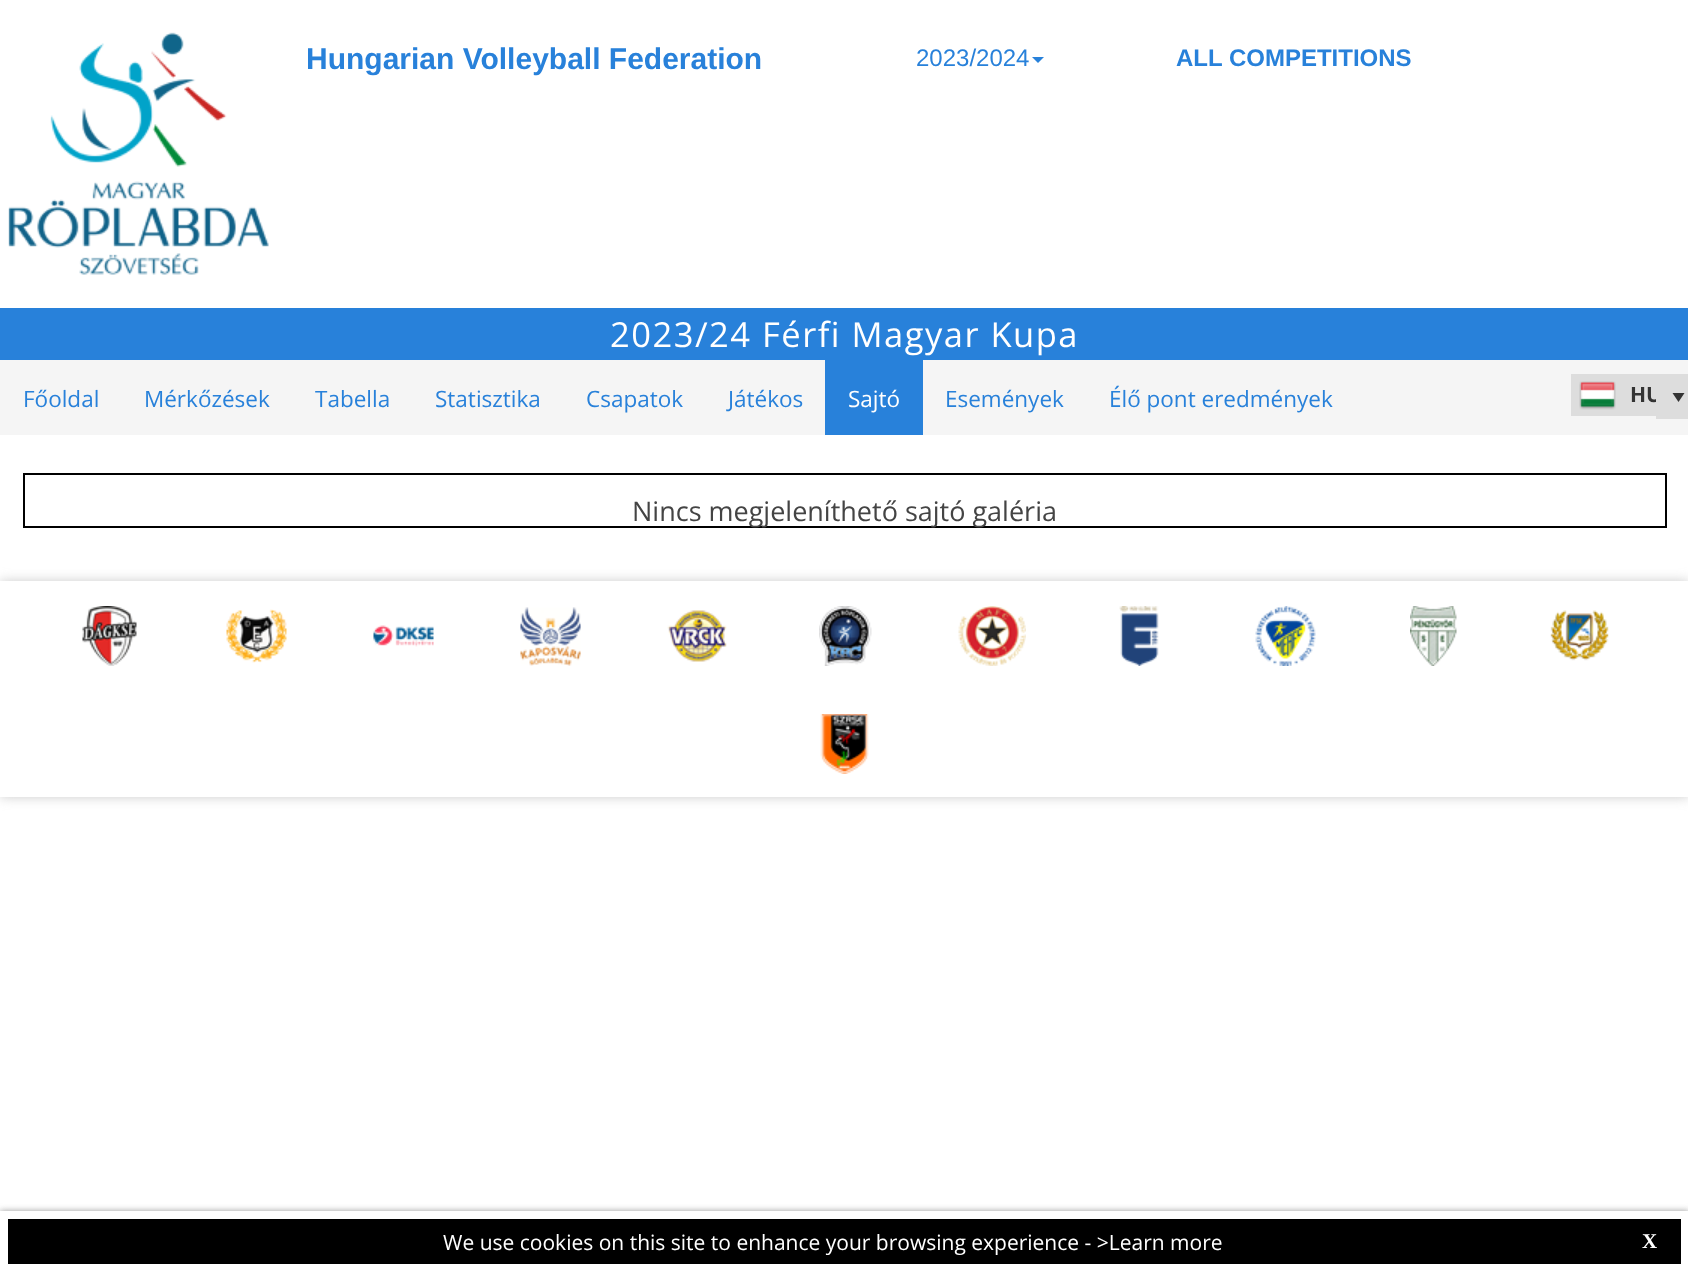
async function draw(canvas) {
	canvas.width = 1688;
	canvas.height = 1271;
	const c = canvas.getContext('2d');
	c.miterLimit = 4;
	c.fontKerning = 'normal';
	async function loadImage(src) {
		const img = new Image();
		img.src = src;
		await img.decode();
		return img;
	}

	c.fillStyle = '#fff';
	c.fillRect(0, 0, 1688, 1271);
	c.drawImage(await loadImage('img1.png'), 8, 32, 261, 243);
	c.font = 'bold 30px Liberation Sans';
	c.fillStyle = '#2881da';
	c.fillText('Hungarian Volleyball Federation', 306, 69);
	c.font = '24px Liberation Sans';
	c.fillText('2023/2024', 916, 66);
	c.beginPath();
	c.moveTo(1032, 57);
	c.lineTo(1044, 57);
	c.lineTo(1038, 63);
	c.closePath();
	c.fill();
	c.font = 'bold 24px Liberation Sans';
	c.fillText('ALL COMPETITIONS', 1176, 66);
	c.fillRect(0, 308, 1688, 52);
	c.letterSpacing = '1.5px';
	c.font = '34.5px Open Sans';
	c.fillStyle = '#fff';
	c.fillText('2023/24 Férfi Magyar Kupa', 610, 347);
	c.fillStyle = '#f5f5f5';
	c.fillRect(0, 360, 1688, 75);
	c.letterSpacing = '0px';
	c.font = '22.5px Open Sans';
	c.fillStyle = '#2881da';
	for (const [text, x, y] of [
		['Főoldal', 23, 407],
		['Mérkőzések', 144, 407],
		['Tabella', 315, 407],
		['Statisztika', 435, 407],
		['Csapatok', 586, 407],
		['Játékos', 728, 407],
	]) {
		c.fillText(text, x, y);
	}
	c.fillRect(825, 360, 98, 75);
	c.fillStyle = '#fff';
	c.fillText('Sajtó', 848, 407);
	c.fillStyle = '#2881da';
	c.fillText('Események', 945, 407);
	c.fillText('Élő pont eredmények', 1109, 407);
	c.fillStyle = '#ddd';
	c.fillRect(1571, 374, 117, 42);
	c.drawImage(await loadImage('img2.png'), 1579, 381, 37, 29);
	c.font = 'bold 21px Open Sans';
	c.fillStyle = '#333';
	c.fillText('HU', 1630, 402);
	c.fillStyle = '#ddd';
	c.fillRect(1656, 387, 32, 32);
	c.fillStyle = '#333';
	c.beginPath();
	c.moveTo(1678.5, 402);
	c.lineTo(1672.5, 393);
	c.lineTo(1684.5, 393);
	c.closePath();
	c.fill();
	c.strokeStyle = '#000';
	c.lineWidth = 2;
	c.strokeRect(24, 474, 1642, 53);
	c.font = '27px Open Sans';
	c.fillStyle = '#444';
	c.fillText('Nincs megjeleníthető sajtó galéria', 632, 521);
	c.save();
	c.beginPath();
	c.moveTo(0, 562);
	c.lineTo(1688, 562);
	c.lineTo(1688, 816);
	c.lineTo(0, 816);
	c.closePath();
	c.moveTo(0, 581);
	c.lineTo(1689, 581);
	c.lineTo(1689, 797);
	c.lineTo(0, 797);
	c.closePath();
	c.clip('evenodd');
	c.fillStyle = '#ccc';
	c.filter = 'blur(6px)';
	c.beginPath();
	c.rect(0, 581, 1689, 216);
	c.fill();
	c.filter = 'none';
	c.restore();
	c.fillStyle = '#ffffffbf';
	c.fillRect(0, 796, 1688, 1);
	c.drawImage(await loadImage('img3.png'), 82, 606, 55, 60);
	c.drawImage(await loadImage('img4.png'), 226, 609, 61, 54);
	c.drawImage(await loadImage('img5.png'), 373, 625, 61, 22);
	c.drawImage(await loadImage('img6.png'), 520, 607, 61, 59);
	c.drawImage(await loadImage('img7.png'), 667, 610, 60, 52);
	c.drawImage(await loadImage('img8.png'), 819, 606, 53, 60);
	c.drawImage(await loadImage('img9.png'), 958, 606, 68, 60);
	c.drawImage(await loadImage('img10.png'), 1119, 606, 40, 60);
	c.drawImage(await loadImage('img11.png'), 1255, 606, 61, 60);
	c.drawImage(await loadImage('img12.png'), 1410, 606, 47, 60);
	c.drawImage(await loadImage('img13.png'), 1550, 610, 59, 51);
	c.drawImage(await loadImage('img14.png'), 820, 714, 49, 60);
	c.fillStyle = '#999';
	c.filter = 'blur(3px)';
	c.beginPath();
	c.rect(0, 1211, 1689, 60);
	c.fill();
	c.filter = 'none';
	c.fillStyle = '#000';
	c.beginPath();
	c.rect(4, 1215, 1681, 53);
	c.fill();
	c.strokeStyle = '#fff';
	c.lineWidth = 8;
	c.stroke();
	c.font = '21px Open Sans';
	c.fillStyle = '#fff';
	c.fillText('We use cookies on this site to enhance your browsing experience - >Learn more', 443, 1250);
	c.font = 'bold 21px Liberation Serif';
	c.fillText('X', 1642, 1248);
}

draw(document.querySelector('canvas'));
